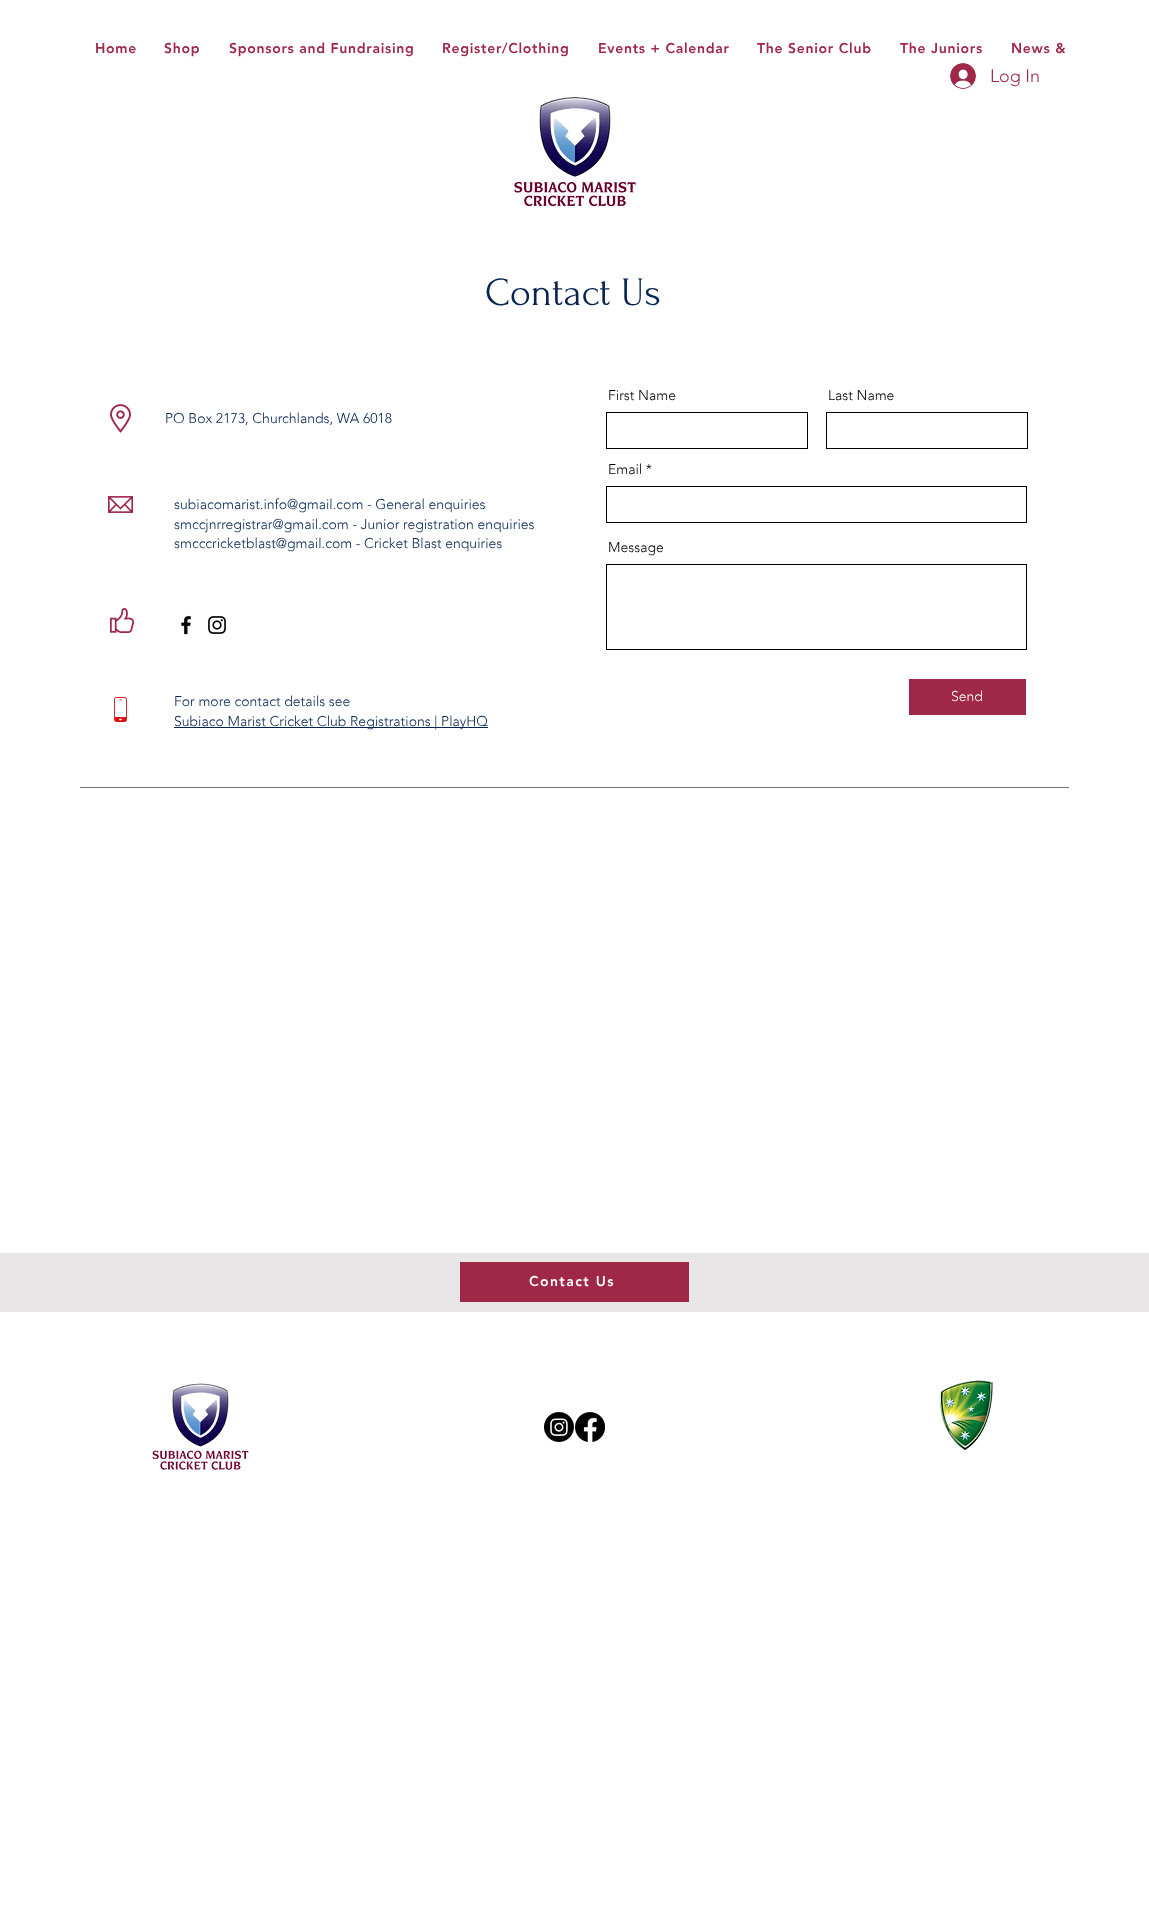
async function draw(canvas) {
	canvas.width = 1149;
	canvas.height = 1916;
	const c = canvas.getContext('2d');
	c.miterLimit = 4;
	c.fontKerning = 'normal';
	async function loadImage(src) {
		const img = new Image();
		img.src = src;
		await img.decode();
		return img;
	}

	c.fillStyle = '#fff';
	c.fillRect(0, 0, 1149, 1916);
	c.letterSpacing = '0.7px';
	c.font = '900 14px "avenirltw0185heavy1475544"';
	c.fillStyle = '#9f2747';
	for (const [text, x, y] of [
		['Home', 95, 53],
		['Shop', 164, 53],
		['Sponsors and Fundraising', 229, 53],
		['Register/Clothing', 442, 53],
		['Events + Calendar', 598, 53],
		['The Senior Club', 757, 53],
		['The Juniors', 900, 53],
		['News &', 1011, 53],
	]) {
		c.fillText(text, x, y);
	}
	c.drawImage(await loadImage('img1.png'), 950, 63, 26, 26);
	c.letterSpacing = '0px';
	c.font = '300 18px "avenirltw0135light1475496"';
	c.fillText('Log In', 990, 82);
	c.drawImage(await loadImage('img2.png'), 514, 97, 122, 110);
	c.font = '40px Forum';
	c.fillStyle = '#062452';
	c.fillText('Contact Us', 485, 305);
	c.drawImage(await loadImage('img3.png'), 110, 404, 21, 29);
	c.font = '300 14px "avenirltw0135light1475496"';
	c.fillText('PO Box 2173, Churchlands, WA 6018', 165, 423);
	c.fillStyle = '#000';
	c.fillText('First Name', 608, 400);
	c.strokeStyle = '#000';
	c.strokeRect(606.5, 412.5, 201, 36);
	c.fillText('Last Name', 828, 400);
	c.strokeRect(826.5, 412.5, 201, 36);
	c.fillText('Email *', 608, 474);
	c.strokeRect(606.5, 486.5, 420, 36);
	c.fillText('Message', 608, 552);
	c.strokeRect(606.5, 564.5, 420, 85);
	c.fillStyle = '#9f2747';
	c.fillRect(909, 679, 117, 36);
	c.fillStyle = '#fff';
	c.fillText('Send', 951, 701);
	c.drawImage(await loadImage('img4.png'), 108, 496, 25, 17);
	c.fillStyle = '#062452';
	for (const [text, x, y] of [
		['subiacomarist.info@gmail.com - General enquiries', 174, 509],
		['smccjnrregistrar@gmail.com - Junior registration enquiries', 174, 529],
		['smcccricketblast@gmail.com - Cricket Blast enquiries', 174, 548],
	]) {
		c.fillText(text, x, y);
	}
	c.drawImage(await loadImage('img5.png'), 110, 608, 24, 25);
	c.drawImage(await loadImage('img6.png'), 181, 615, 10, 20);
	c.drawImage(await loadImage('img7.png'), 208, 616, 18, 18);
	c.drawImage(await loadImage('img8.png'), 114, 697, 13, 25);
	c.fillText('For more contact details see', 174, 706);
	c.fillRect(174, 727, 314, 1);
	c.fillText('Subiaco Marist Cricket Club Registrations | PlayHQ', 174, 726);
	for (const [x, y, w, h, color] of [
		[80, 787, 989, 1, '#757575'],
		[0, 1253, 1149, 59, '#e8e6e6'],
		[460, 1262, 229, 40, '#9f2747'],
	]) {
		c.fillStyle = color;
		c.fillRect(x, y, w, h);
	}
	c.letterSpacing = '1.4px';
	c.font = '900 14px "avenirltw0185heavy1475544"';
	c.fillStyle = '#fff';
	c.fillText('Contact Us', 529, 1286);
	c.drawImage(await loadImage('img9.png'), 152, 1383, 97, 87);
	c.drawImage(await loadImage('img10.png'), 544, 1412, 30, 30);
	c.drawImage(await loadImage('img11.png'), 575, 1412, 30, 30);
	c.drawImage(await loadImage('img12.png'), 939, 1380, 54, 71);
}

draw(document.querySelector('canvas'));
